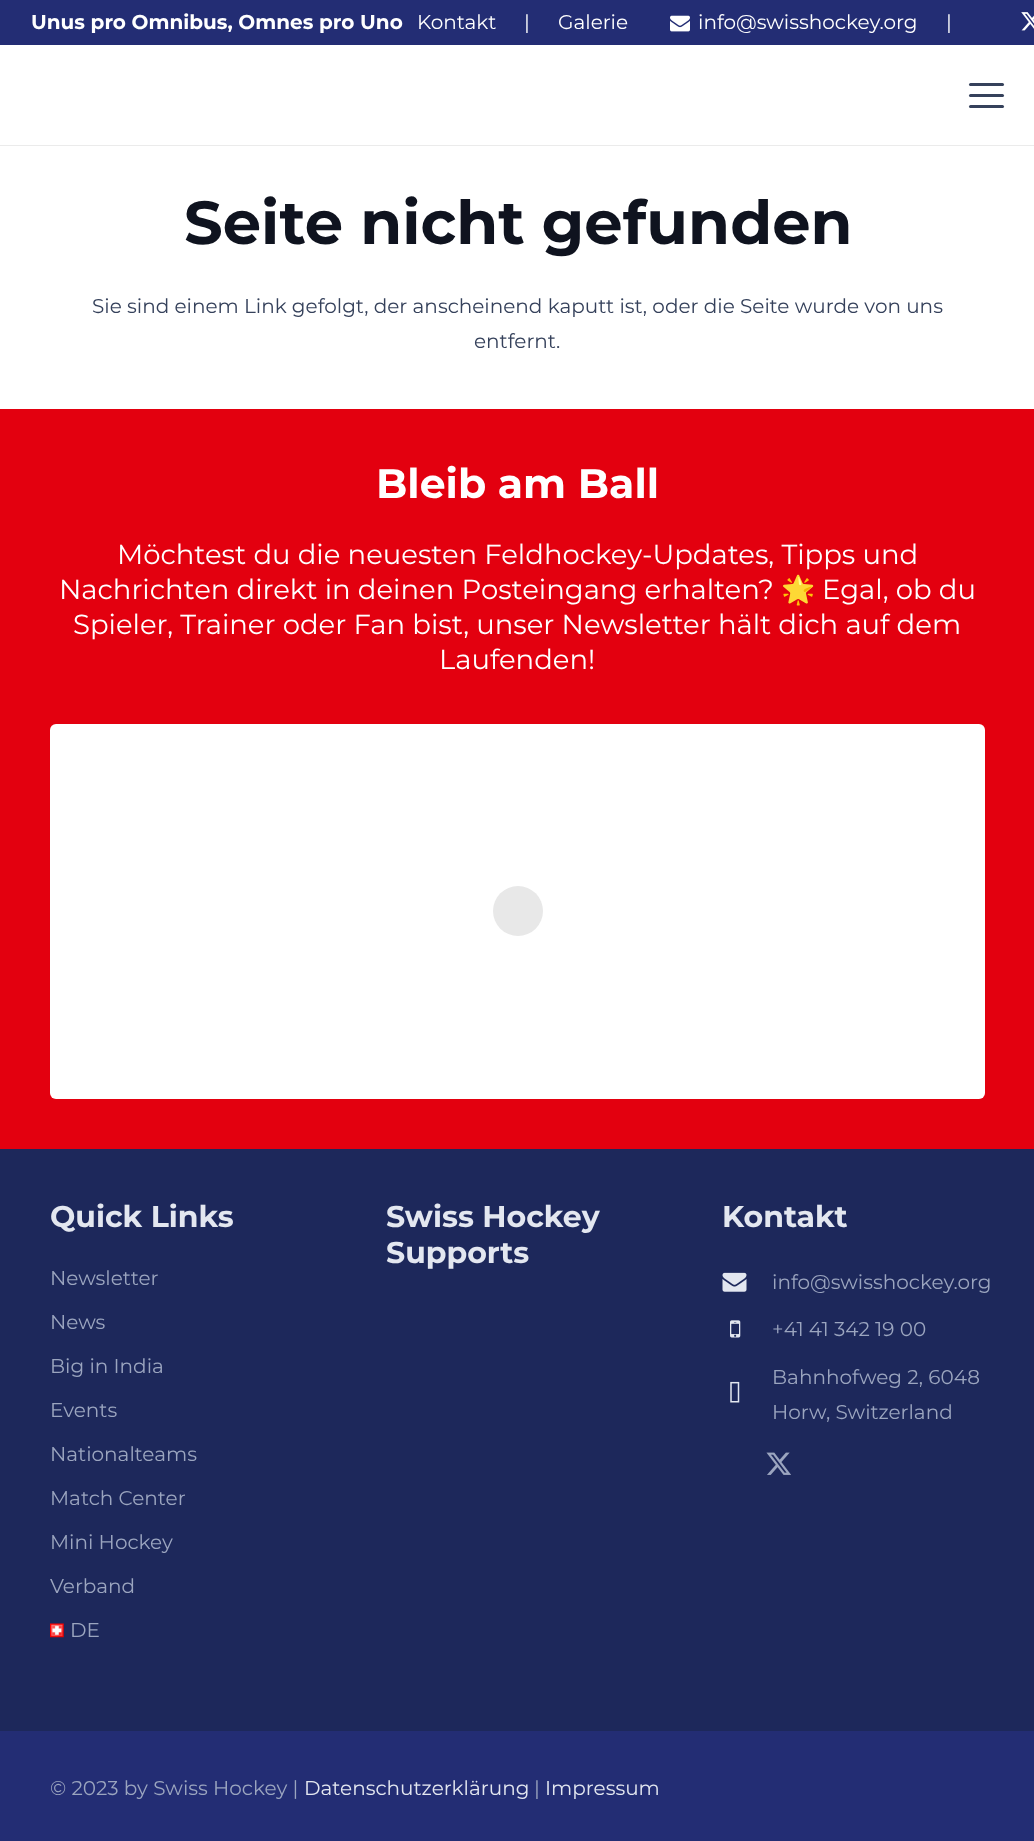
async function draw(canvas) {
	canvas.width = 1034;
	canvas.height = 1841;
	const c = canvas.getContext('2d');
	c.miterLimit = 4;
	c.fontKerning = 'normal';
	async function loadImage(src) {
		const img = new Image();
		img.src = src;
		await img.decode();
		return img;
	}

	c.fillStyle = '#fff';
	c.fillRect(0, 0, 1034, 1841);
	c.fillStyle = '#232d74';
	c.fillRect(0, 0, 1034, 45);
	c.font = '100 20px Montserrat';
	c.fillStyle = '#fff';
	c.fillText('Unus pro Omnibus, Omnes pro Uno', 31, 29);
	c.font = '100 20px "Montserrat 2"';
	for (const [text, x, y] of [
		['Kontakt', 417, 29],
		['|', 524, 29],
		['Galerie', 558, 29],
	]) {
		c.fillText(text, x, y);
	}
	c.drawImage(await loadImage('img1.png'), 670, 15, 20, 17);
	c.fillText('info@swisshockey.org', 698, 29);
	c.fillText('|', 946, 29);
	c.drawImage(await loadImage('img2.png'), 1021, 12, 13, 19);
	c.fillStyle = '#ebebeb';
	c.fillRect(0, 145, 1034, 1);
	c.fillStyle = '#35415b';
	c.beginPath();
	c.roundRect(969, 94, 35, 3, 1.5);
	c.fill();
	c.beginPath();
	c.roundRect(969, 83, 35, 3, 1.5);
	c.fill();
	c.beginPath();
	c.roundRect(969, 105, 35, 3, 1.5);
	c.fill();
	c.font = '100 60.75px Montserrat';
	c.fillStyle = '#0f131f';
	c.fillText('Seite nicht gefunden', 184, 244);
	c.font = '100 20px "Montserrat 2"';
	c.fillStyle = '#35415b';
	c.fillText('Sie sind einem Link gefolgt, der anscheinend kaputt ist, oder die Seite wurde von uns', 92, 313);
	c.fillText('entfernt.', 474, 348);
	c.fillStyle = '#e3000f';
	c.fillRect(0, 409, 1034, 740);
	c.font = '100 41px Montserrat';
	c.fillStyle = '#fff';
	c.fillText('Bleib am Ball', 376, 498);
	c.font = '100 27.5px "Montserrat 2"';
	c.fillText('Möchtest du die neuesten Feldhockey-Updates, Tipps und', 117, 564);
	c.fillText('Nachrichten direkt in deinen Posteingang erhalten?', 59, 599);
	c.font = '27.5px Noto Color Emoji';
	c.fillText('🌟', 781, 599);
	c.font = '100 27.5px "Montserrat 2"';
	for (const [text, x, y] of [
		['Egal, ob du', 822, 599],
		['Spieler, Trainer oder Fan bist, unser Newsletter hält dich auf dem', 73, 634],
		['Laufenden!', 439, 669],
	]) {
		c.fillText(text, x, y);
	}
	c.beginPath();
	c.roundRect(50, 724, 935, 375, 6);
	c.fill();
	c.fillStyle = '#e8e8e8';
	c.beginPath();
	c.arc(518, 911, 25, 0, 2 * Math.PI);
	c.fill();
	c.fillStyle = '#1d285b';
	c.fillRect(0, 1149, 1034, 582);
	c.font = '100 30px Montserrat';
	c.fillStyle = '#e3e7f0';
	c.fillText('Quick Links', 50, 1227);
	c.font = '100 20px "Montserrat 2"';
	c.fillStyle = '#9ba5bf';
	for (const [text, x, y] of [
		['Newsletter', 50, 1285],
		['News', 50, 1329],
		['Big in India', 50, 1373],
		['Events', 50, 1417],
		['Nationalteams', 50, 1461],
		['Match Center', 50, 1505],
		['Mini Hockey', 50, 1549],
		['Verband', 50, 1593],
	]) {
		c.fillText(text, x, y);
	}
	c.drawImage(await loadImage('img3.png'), 50, 1623, 14, 15);
	c.fillText('DE', 70, 1637);
	c.font = '100 30px Montserrat';
	c.fillStyle = '#e3e7f0';
	for (const [text, x, y] of [
		['Swiss Hockey', 386, 1227],
		['Supports', 386, 1263],
		['Kontakt', 722, 1227],
	]) {
		c.fillText(text, x, y);
	}
	c.drawImage(await loadImage('img4.png'), 722, 1272, 25, 20);
	c.font = '100 20px "Montserrat 2"';
	c.fillStyle = '#9ba5bf';
	c.fillText('info@swisshockey.org', 772, 1289);
	c.drawImage(await loadImage('img5.png'), 730, 1320, 11, 18);
	c.fillText('+41 41 342 19 00', 772, 1336);
	c.drawImage(await loadImage('img6.png'), 730, 1381, 10, 22);
	c.fillText('Bahnhofweg 2, 6048', 772, 1384);
	c.fillText('Horw, Switzerland', 772, 1419);
	c.drawImage(await loadImage('img7.png'), 766, 1452, 25, 23);
	c.fillStyle = '#232d74';
	c.fillRect(0, 1731, 1034, 110);
	c.fillStyle = '#9ba5bf';
	c.fillText('© 2023 by Swiss Hockey |', 50, 1795);
	c.fillStyle = '#e3e7f0';
	c.fillText('Datenschutzerklärung', 304, 1795);
	c.fillStyle = '#9ba5bf';
	c.fillText('|', 534, 1795);
	c.fillStyle = '#e3e7f0';
	c.fillText('Impressum', 545, 1795);
}

draw(document.querySelector('canvas'));
